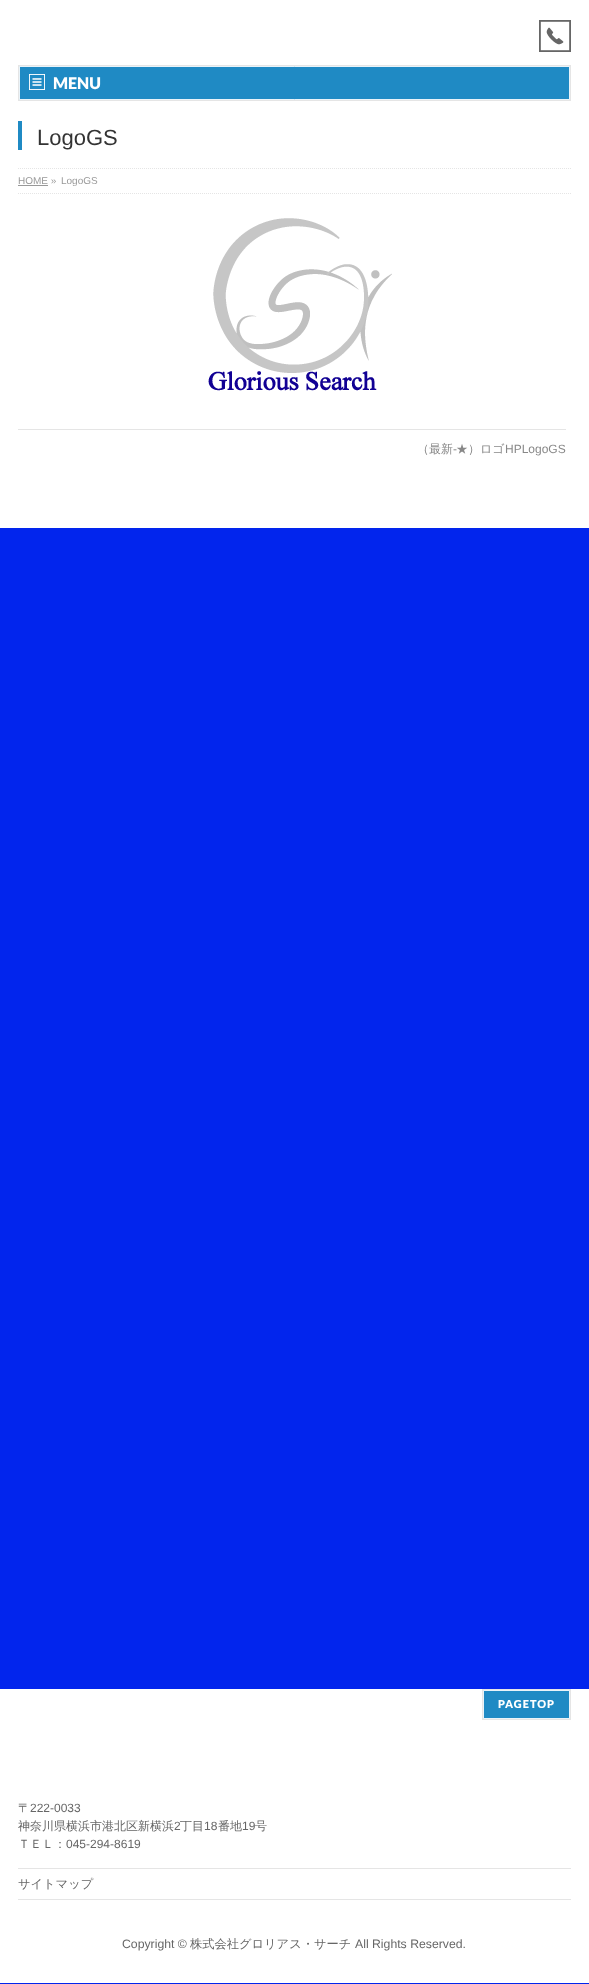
async function draw(canvas) {
	canvas.width = 589;
	canvas.height = 1984;
	const c = canvas.getContext('2d');
	c.miterLimit = 4;
	c.fontKerning = 'normal';
	async function loadImage(src) {
		const img = new Image();
		img.src = src;
		await img.decode();
		return img;
	}

	c.fillStyle = '#0225ed';
	c.fillRect(0, 0, 589, 1984);
	c.fillStyle = '#fff';
	c.fillRect(0, 0, 589, 101);
	c.drawImage(await loadImage('img1.png'), 539, 20, 32, 32);
	c.fillStyle = '#1f8ac4';
	c.beginPath();
	c.rect(19.5, 66.5, 550, 33);
	c.fill();
	c.strokeStyle = '#e9f3f9';
	c.stroke();
	c.strokeStyle = '#e5e5e5';
	c.strokeRect(18.5, 65.5, 552, 35);
	c.drawImage(await loadImage('img2.png'), 29, 74, 16, 16);
	c.font = '900 16px Lato';
	c.fillStyle = '#fff';
	c.fillText('MENU', 53, 89);
	c.fillRect(0, 101, 589, 67);
	c.fillStyle = '#1f8ac4';
	c.fillRect(18, 121, 4, 29);
	c.font = '22px Liberation Sans';
	c.fillStyle = '#333';
	c.fillText('LogoGS', 37, 145);
	c.fillStyle = '#fff';
	c.fillRect(0, 168, 589, 360);
	c.beginPath();
	c.moveTo(18, 168.5);
	c.lineTo(571, 168.5);
	c.setLineDash([1, 1]);
	c.stroke();
	c.beginPath();
	c.moveTo(18, 193.5);
	c.lineTo(571, 193.5);
	c.stroke();
	c.font = '10px Liberation Sans';
	c.fillStyle = '#999';
	c.fillText('HOME »', 18, 184);
	c.fillRect(18, 185, 30, 1);
	c.fillText('LogoGS', 61, 184);
	c.drawImage(await loadImage('img3.png'), 208, 218, 184, 173);
	c.fillStyle = '#e5e5e5';
	c.fillRect(18, 429, 548, 1);
	c.font = '500 12px WenQuanYi Zen Hei';
	c.fillStyle = '#888';
	c.fillText('（最新', 417, 453);
	c.font = '12px Liberation Sans';
	c.fillText('-', 453, 453);
	c.font = '500 12px WenQuanYi Zen Hei';
	c.fillText('★）ロゴ', 456, 453);
	c.font = '12px Liberation Sans';
	c.fillText('HPLogoGS', 505, 453);
	c.fillStyle = '#fff';
	c.fillRect(0, 1689, 589, 231);
	c.fillStyle = '#1f8ac4';
	c.beginPath();
	c.rect(483.5, 1690.5, 86, 28);
	c.fill();
	c.strokeStyle = '#e9f3f9';
	c.setLineDash([]);
	c.stroke();
	c.strokeStyle = '#e5e5e5';
	c.strokeRect(482.5, 1689.5, 88, 30);
	c.letterSpacing = '1px';
	c.font = '900 11px Lato';
	c.fillStyle = '#fff';
	c.fillText('PAGETOP', 498, 1708);
	c.letterSpacing = '0px';
	c.font = '500 12px WenQuanYi Zen Hei';
	c.fillStyle = '#666';
	c.fillText('〒', 18, 1812);
	c.font = '12px Liberation Sans';
	c.fillText('222-0033', 30, 1812);
	c.font = '500 12px WenQuanYi Zen Hei';
	c.fillText('神奈川県横浜市港北区新横浜', 18, 1830);
	c.font = '12px Liberation Sans';
	c.fillText('2', 174, 1830);
	c.font = '500 12px WenQuanYi Zen Hei';
	c.fillText('丁目', 180, 1830);
	c.font = '12px Liberation Sans';
	c.fillText('18', 204, 1830);
	c.font = '500 12px WenQuanYi Zen Hei';
	c.fillText('番地', 218, 1830);
	c.font = '12px Liberation Sans';
	c.fillText('19', 242, 1830);
	c.font = '500 12px WenQuanYi Zen Hei';
	c.fillText('号', 255, 1830);
	c.fillText('ＴＥＬ：', 18, 1848);
	c.font = '12px Liberation Sans';
	c.fillText('045-294-8619', 66, 1848);
	c.fillStyle = '#e5e5e5';
	c.fillRect(18, 1868, 553, 1);
	c.fillRect(18, 1899, 553, 1);
	c.font = '500 12.25px WenQuanYi Zen Hei';
	c.fillStyle = '#666';
	c.fillText('サイトマップ', 18, 1888);
	c.fillStyle = '#fff';
	c.fillRect(0, 1920, 589, 63);
	c.font = '12.25px Liberation Sans';
	c.fillStyle = '#666';
	c.fillText('Copyright ©', 122, 1948);
	c.font = '500 12.25px WenQuanYi Zen Hei';
	c.fillText('株式会社グロリアス・サーチ', 190, 1948);
	c.font = '12.25px Liberation Sans';
	c.fillText('All Rights Reserved.', 355, 1948);
}

draw(document.querySelector('canvas'));
